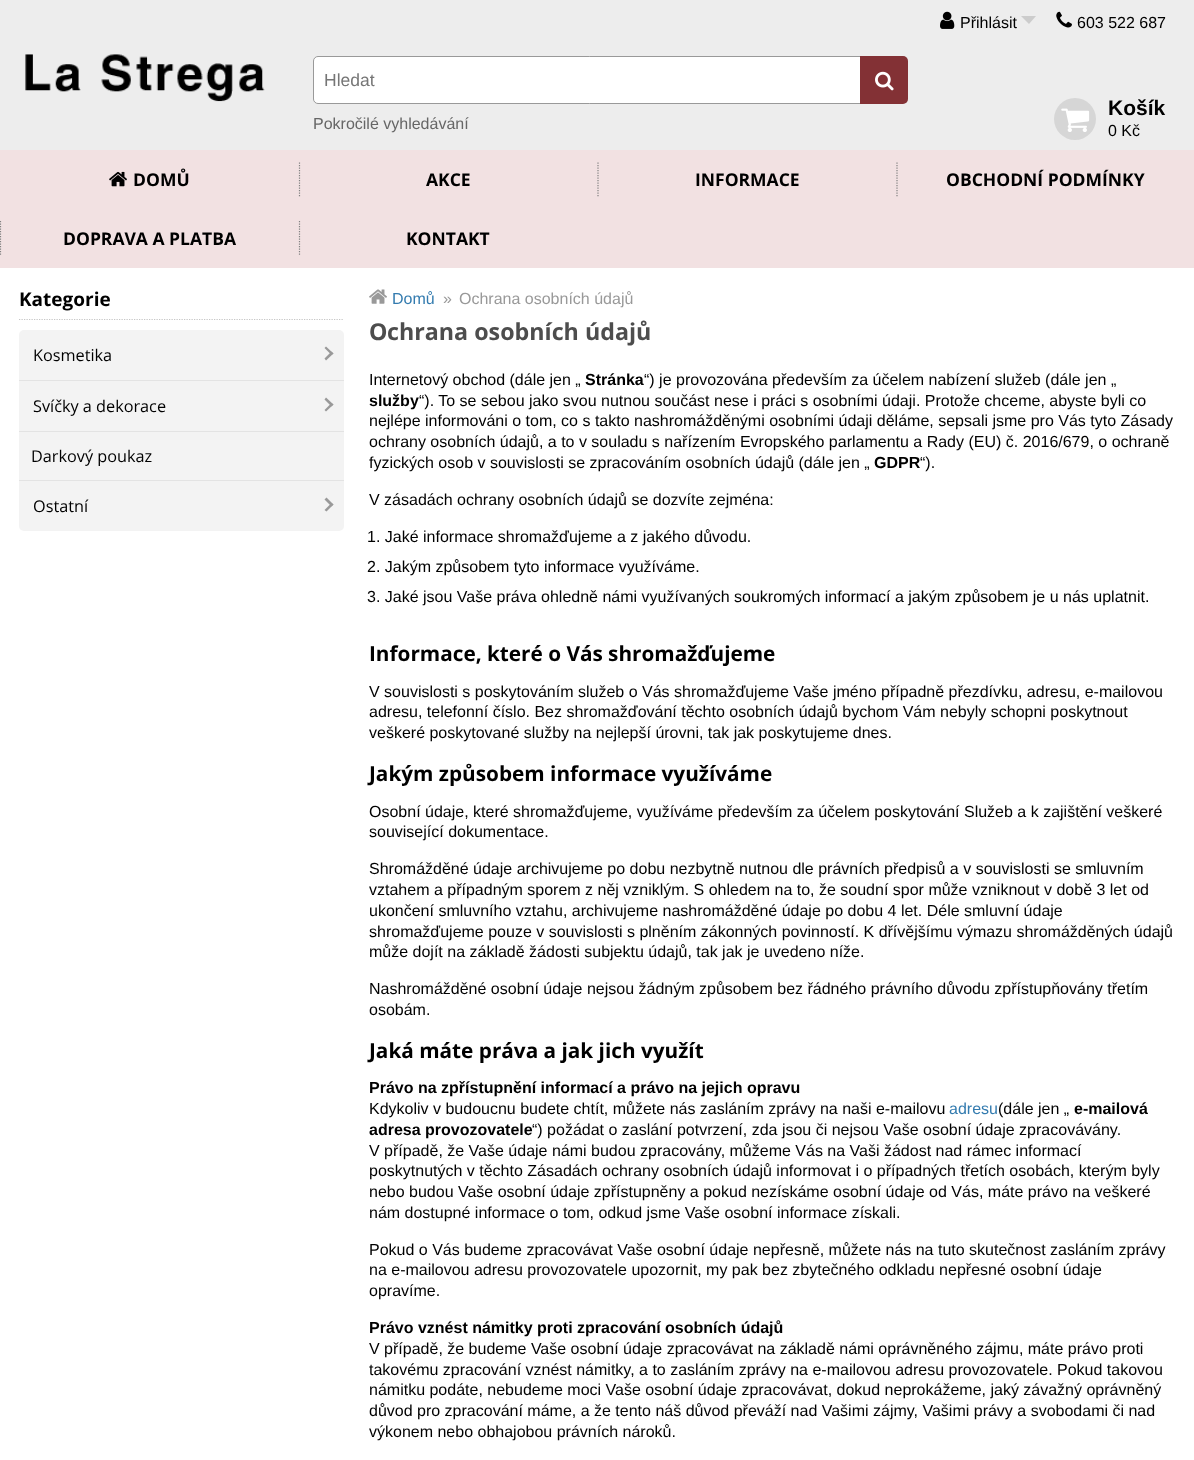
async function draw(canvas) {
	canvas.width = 1194;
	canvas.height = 1460;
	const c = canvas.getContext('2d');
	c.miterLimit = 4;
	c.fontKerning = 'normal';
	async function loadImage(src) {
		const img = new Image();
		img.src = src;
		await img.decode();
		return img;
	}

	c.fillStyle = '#fff';
	c.fillRect(0, 0, 1194, 1460);
	c.fillStyle = '#ededed';
	c.fillRect(0, 0, 1194, 150);
	c.fillStyle = '#fff';
	c.beginPath();
	c.roundRect(313.5, 56.5, 547, 47, [4.5, 0, 0, 4.5]);
	c.fill();
	c.strokeStyle = '#999';
	c.stroke();
	c.font = '17.5px Liberation Sans';
	c.fillStyle = '#767676';
	c.fillText('Hledat', 324, 86);
	c.fillStyle = '#833135';
	c.beginPath();
	c.roundRect(860, 56, 48, 48, [0, 5, 5, 0]);
	c.fill();
	c.drawImage(await loadImage('img1.png'), 875, 71, 19, 20);
	c.font = '16px Liberation Sans';
	c.fillStyle = '#666';
	c.fillText('Pokročilé vyhledávání', 313, 129);
	c.drawImage(await loadImage('img2.png'), 25, 54, 240, 48);
	c.drawImage(await loadImage('img3.png'), 940, 11, 15, 18);
	c.fillStyle = '#000';
	c.fillText('Přihlásit', 960, 28);
	c.fillStyle = '#ccc';
	c.beginPath();
	c.moveTo(1021, 16);
	c.lineTo(1036, 16);
	c.lineTo(1029, 24);
	c.closePath();
	c.fill();
	c.drawImage(await loadImage('img4.png'), 1056, 11, 16, 17);
	c.fillStyle = '#000';
	c.fillText('603 522 687', 1077, 28);
	c.fillStyle = '#d6d6d6';
	c.beginPath();
	c.arc(1075, 119, 21, 0, 2 * Math.PI);
	c.fill();
	c.drawImage(await loadImage('img5.png'), 1061, 108, 29, 24);
	c.font = 'bold 21px Liberation Sans';
	c.fillStyle = '#000';
	c.fillText('Košík', 1108, 115);
	c.font = '16px Liberation Sans';
	c.fillText('0 Kč', 1108, 136);
	c.fillStyle = '#f2e1e2';
	c.fillRect(0, 150, 1194, 118);
	c.drawImage(await loadImage('img6.png'), 109, 171, 18, 16);
	c.font = 'bold 17.5px Open Sans';
	c.fillStyle = '#000';
	c.fillText('DOMŮ', 133, 186);
	c.beginPath();
	c.moveTo(299.5, 162.5);
	c.lineTo(299.5, 197.5);
	c.strokeStyle = '#808080';
	c.lineWidth = 1.2;
	c.setLineDash([1.25, 1.25]);
	c.stroke();
	c.fillText('AKCE', 426, 186);
	c.beginPath();
	c.moveTo(598, 162.5);
	c.lineTo(598, 197.5);
	c.stroke();
	c.fillText('INFORMACE', 695, 186);
	c.beginPath();
	c.moveTo(897, 162.5);
	c.lineTo(897, 197.5);
	c.stroke();
	c.fillText('OBCHODNÍ PODMÍNKY', 946, 186);
	c.beginPath();
	c.moveTo(0.5, 221);
	c.lineTo(0.5, 256);
	c.stroke();
	c.fillText('DOPRAVA A PLATBA', 63, 245);
	c.beginPath();
	c.moveTo(299.5, 221);
	c.lineTo(299.5, 256);
	c.stroke();
	c.fillText('KONTAKT', 406, 245);
	c.beginPath();
	c.moveTo(19, 319.5);
	c.lineTo(344, 319.5);
	c.strokeStyle = '#c6c6c6';
	c.stroke();
	c.font = 'bold 19px Open Sans';
	c.fillText('Kategorie', 19, 306);
	c.fillStyle = '#f3f3f3';
	c.beginPath();
	c.roundRect(19, 330, 325, 201, 5);
	c.fill();
	c.font = '16.25px Open Sans';
	c.fillStyle = '#000';
	c.fillText('Kosmetika', 33, 361);
	c.fillStyle = '#999';
	c.beginPath();
	c.moveTo(324.5, 348);
	c.lineTo(326, 346.5);
	c.lineTo(333.5, 353.5);
	c.lineTo(331.5, 355);
	c.closePath();
	c.fill();
	c.beginPath();
	c.moveTo(324.5, 358.5);
	c.lineTo(331.5, 351.5);
	c.lineTo(333.5, 353.5);
	c.lineTo(326, 360.5);
	c.closePath();
	c.fill();
	c.fillStyle = '#e3e3e3';
	c.fillRect(19, 380, 325, 1);
	c.fillStyle = '#000';
	c.fillText('Svíčky a dekorace', 33, 412);
	c.fillStyle = '#999';
	c.beginPath();
	c.moveTo(324.5, 399.5);
	c.lineTo(326, 397.5);
	c.lineTo(333.5, 404.5);
	c.lineTo(331.5, 406.5);
	c.closePath();
	c.fill();
	c.beginPath();
	c.moveTo(324.5, 410);
	c.lineTo(331.5, 403);
	c.lineTo(333.5, 404.5);
	c.lineTo(326, 411.5);
	c.closePath();
	c.fill();
	c.fillStyle = '#e3e3e3';
	c.fillRect(19, 431, 325, 1);
	c.fillStyle = '#000';
	c.fillText('Darkový poukaz', 31, 462);
	c.fillStyle = '#e3e3e3';
	c.fillRect(19, 480, 325, 1);
	c.fillStyle = '#000';
	c.fillText('Ostatní', 33, 512);
	c.fillStyle = '#999';
	c.beginPath();
	c.moveTo(324.5, 499.5);
	c.lineTo(326.5, 497.5);
	c.lineTo(333.5, 504.5);
	c.lineTo(331.5, 506.5);
	c.closePath();
	c.fill();
	c.beginPath();
	c.moveTo(324.5, 510);
	c.lineTo(331.5, 503);
	c.lineTo(333.5, 504.5);
	c.lineTo(326.5, 511.5);
	c.closePath();
	c.fill();
	c.drawImage(await loadImage('img7.png'), 369, 289, 18, 15);
	c.font = '16px Liberation Sans';
	c.fillStyle = '#337baf';
	c.fillText('Domů', 392, 304);
	c.fillStyle = '#999';
	c.fillText('»', 443, 304);
	c.fillText('Ochrana osobních údajů', 459, 304);
	c.font = 'bold 23.25px Noto Sans';
	c.fillStyle = '#4d4d4d';
	c.fillText('O', 369, 340);
	c.font = 'bold 23.25px Open Sans';
	c.fillText('chrana osobních údajů', 387, 340);
	c.font = '16px Liberation Sans';
	c.fillStyle = '#000';
	c.fillText('Internetový obchod (dále jen „', 369, 385);
	c.font = 'bold 16px Liberation Sans';
	c.fillText('Stránka', 585, 385);
	c.font = '16px Liberation Sans';
	c.fillText('“) je provozována především za účelem nabízení služeb (dále jen „', 644, 385);
	c.font = 'bold 16px Liberation Sans';
	c.fillText('služby', 369, 406);
	c.font = '16px Liberation Sans';
	for (const [text, x, y] of [
		['“). To se sebou jako svou nutnou součást nese i práci s osobními údaji. Protože chceme, abyste byli co', 419, 406],
		['nejlépe informováni o tom, co s takto nashromážděnými osobními údaji děláme, sepsali jsme pro Vás tyto Zásady', 369, 426],
		['ochrany osobních údajů, a to v souladu s nařízením Evropského parlamentu a Rady (EU) č. 2016/679, o ochraně', 369, 447],
		['fyzických osob v souvislosti se zpracováním osobních údajů (dále jen „', 369, 468],
	]) {
		c.fillText(text, x, y);
	}
	c.font = 'bold 16px Liberation Sans';
	c.fillText('GDPR', 874, 468);
	c.font = '16px Liberation Sans';
	for (const [text, x, y] of [
		['“).', 920, 468],
		['V zásadách ochrany osobních údajů se dozvíte zejména:', 369, 505],
		['1. Jaké informace shromažďujeme a z jakého důvodu.', 367, 542],
		['2. Jakým způsobem tyto informace využíváme.', 367, 572],
		['3. Jaké jsou Vaše práva ohledně námi využívaných soukromých informací a jakým způsobem je u nás uplatnit.', 367, 602],
	]) {
		c.fillText(text, x, y);
	}
	c.font = 'bold 20.75px Open Sans';
	c.fillText('Informace, které o Vás shromažďujeme', 369, 661);
	c.font = '16px Liberation Sans';
	for (const [text, x, y] of [
		['V souvislosti s poskytováním služeb o Vás shromažďujeme Vaše jméno případně přezdívku, adresu, e-mailovou', 369, 697],
		['adresu, telefonní číslo. Bez shromažďování těchto osobních údajů bychom Vám nebyly schopni poskytnout', 369, 717],
		['veškeré poskytované služby na nejlepší úrovni, tak jak poskytujeme dnes.', 369, 738],
	]) {
		c.fillText(text, x, y);
	}
	c.font = 'bold 20.75px Open Sans';
	c.fillText('Jakým způsobem informace využíváme', 369, 781);
	c.font = '16px Liberation Sans';
	for (const [text, x, y] of [
		['Osobní údaje, které shromažďujeme, využíváme především za účelem poskytování Služeb a k zajištění veškeré', 369, 817],
		['související dokumentace.', 369, 837],
		['Shromážděné údaje archivujeme po dobu nezbytně nutnou dle právních předpisů a v souvislosti se smluvním', 369, 874],
		['vztahem a případným sporem z něj vzniklým. S ohledem na to, že soudní spor může vzniknout v době 3 let od', 369, 895],
		['ukončení smluvního vztahu, archivujeme nashromážděné údaje po dobu 4 let. Déle smluvní údaje', 369, 916],
		['shromažďujeme pouze v souvislosti s plněním zákonných povinností. K dřívějšímu výmazu shromážděných údajů', 369, 937],
		['může dojít na základě žádosti subjektu údajů, tak jak je uvedeno níže.', 369, 957],
		['Nashromážděné osobní údaje nejsou žádným způsobem bez řádného právního důvodu zpřístupňovány třetím', 369, 994],
		['osobám.', 369, 1015],
	]) {
		c.fillText(text, x, y);
	}
	c.font = 'bold 20.75px Open Sans';
	c.fillText('Jaká máte práva a jak jich využít', 369, 1058);
	c.font = 'bold 16px Liberation Sans';
	c.fillText('Právo na zpřístupnění informací a právo na jejich opravu', 369, 1093);
	c.font = '16px Liberation Sans';
	c.fillText('Kdykoliv v budoucnu budete chtít, můžete nás zasláním zprávy na naši e-mailovu', 369, 1114);
	c.fillStyle = '#337baf';
	c.fillText('adresu', 949, 1114);
	c.fillStyle = '#000';
	c.fillText('(dále jen „', 998, 1114);
	c.font = 'bold 16px Liberation Sans';
	c.fillText('e-mailová', 1074, 1114);
	c.fillText('adresa provozovatele', 369, 1135);
	c.font = '16px Liberation Sans';
	for (const [text, x, y] of [
		['“) požádat o zaslání potvrzení, zda jsou či nejsou Vaše osobní údaje zpracovávány.', 532, 1135],
		['V případě, že Vaše údaje námi budou zpracovány, můžeme Vás na Vaši žádost nad rámec informací', 369, 1156],
		['poskytnutých v těchto Zásadách ochrany osobních údajů informovat i o případných třetích osobách, kterým byly', 369, 1176],
		['nebo budou Vaše osobní údaje zpřístupněny a pokud nezískáme osobní údaje od Vás, máte právo na veškeré', 369, 1197],
		['nám dostupné informace o tom, odkud jsme Vaše osobní informace získali.', 369, 1218],
		['Pokud o Vás budeme zpracovávat Vaše osobní údaje nepřesně, můžete nás na tuto skutečnost zasláním zprávy', 369, 1255],
		['na e-mailovou adresu provozovatele upozornit, my pak bez zbytečného odkladu nepřesné osobní údaje', 369, 1275],
		['opravíme.', 369, 1296],
	]) {
		c.fillText(text, x, y);
	}
	c.font = 'bold 16px Liberation Sans';
	c.fillText('Právo vznést námitky proti zpracování osobních údajů', 369, 1333);
	c.font = '16px Liberation Sans';
	for (const [text, x, y] of [
		['V případě, že budeme Vaše osobní údaje zpracovávat na základě námi oprávněného zájmu, máte právo proti', 369, 1354],
		['takovému zpracování vznést námitky, a to zasláním zprávy na e-mailovou adresu provozovatele. Pokud takovou', 369, 1375],
		['námitku podáte, nebudeme moci Vaše osobní údaje zpracovávat, dokud neprokážeme, jaký závažný oprávněný', 369, 1395],
		['důvod pro zpracování máme, a že tento náš důvod převáží nad Vašimi zájmy, Vašimi právy a svobodami či nad', 369, 1416],
		['výkonem nebo obhajobou právních nároků.', 369, 1437],
	]) {
		c.fillText(text, x, y);
	}
}

draw(document.querySelector('canvas'));
